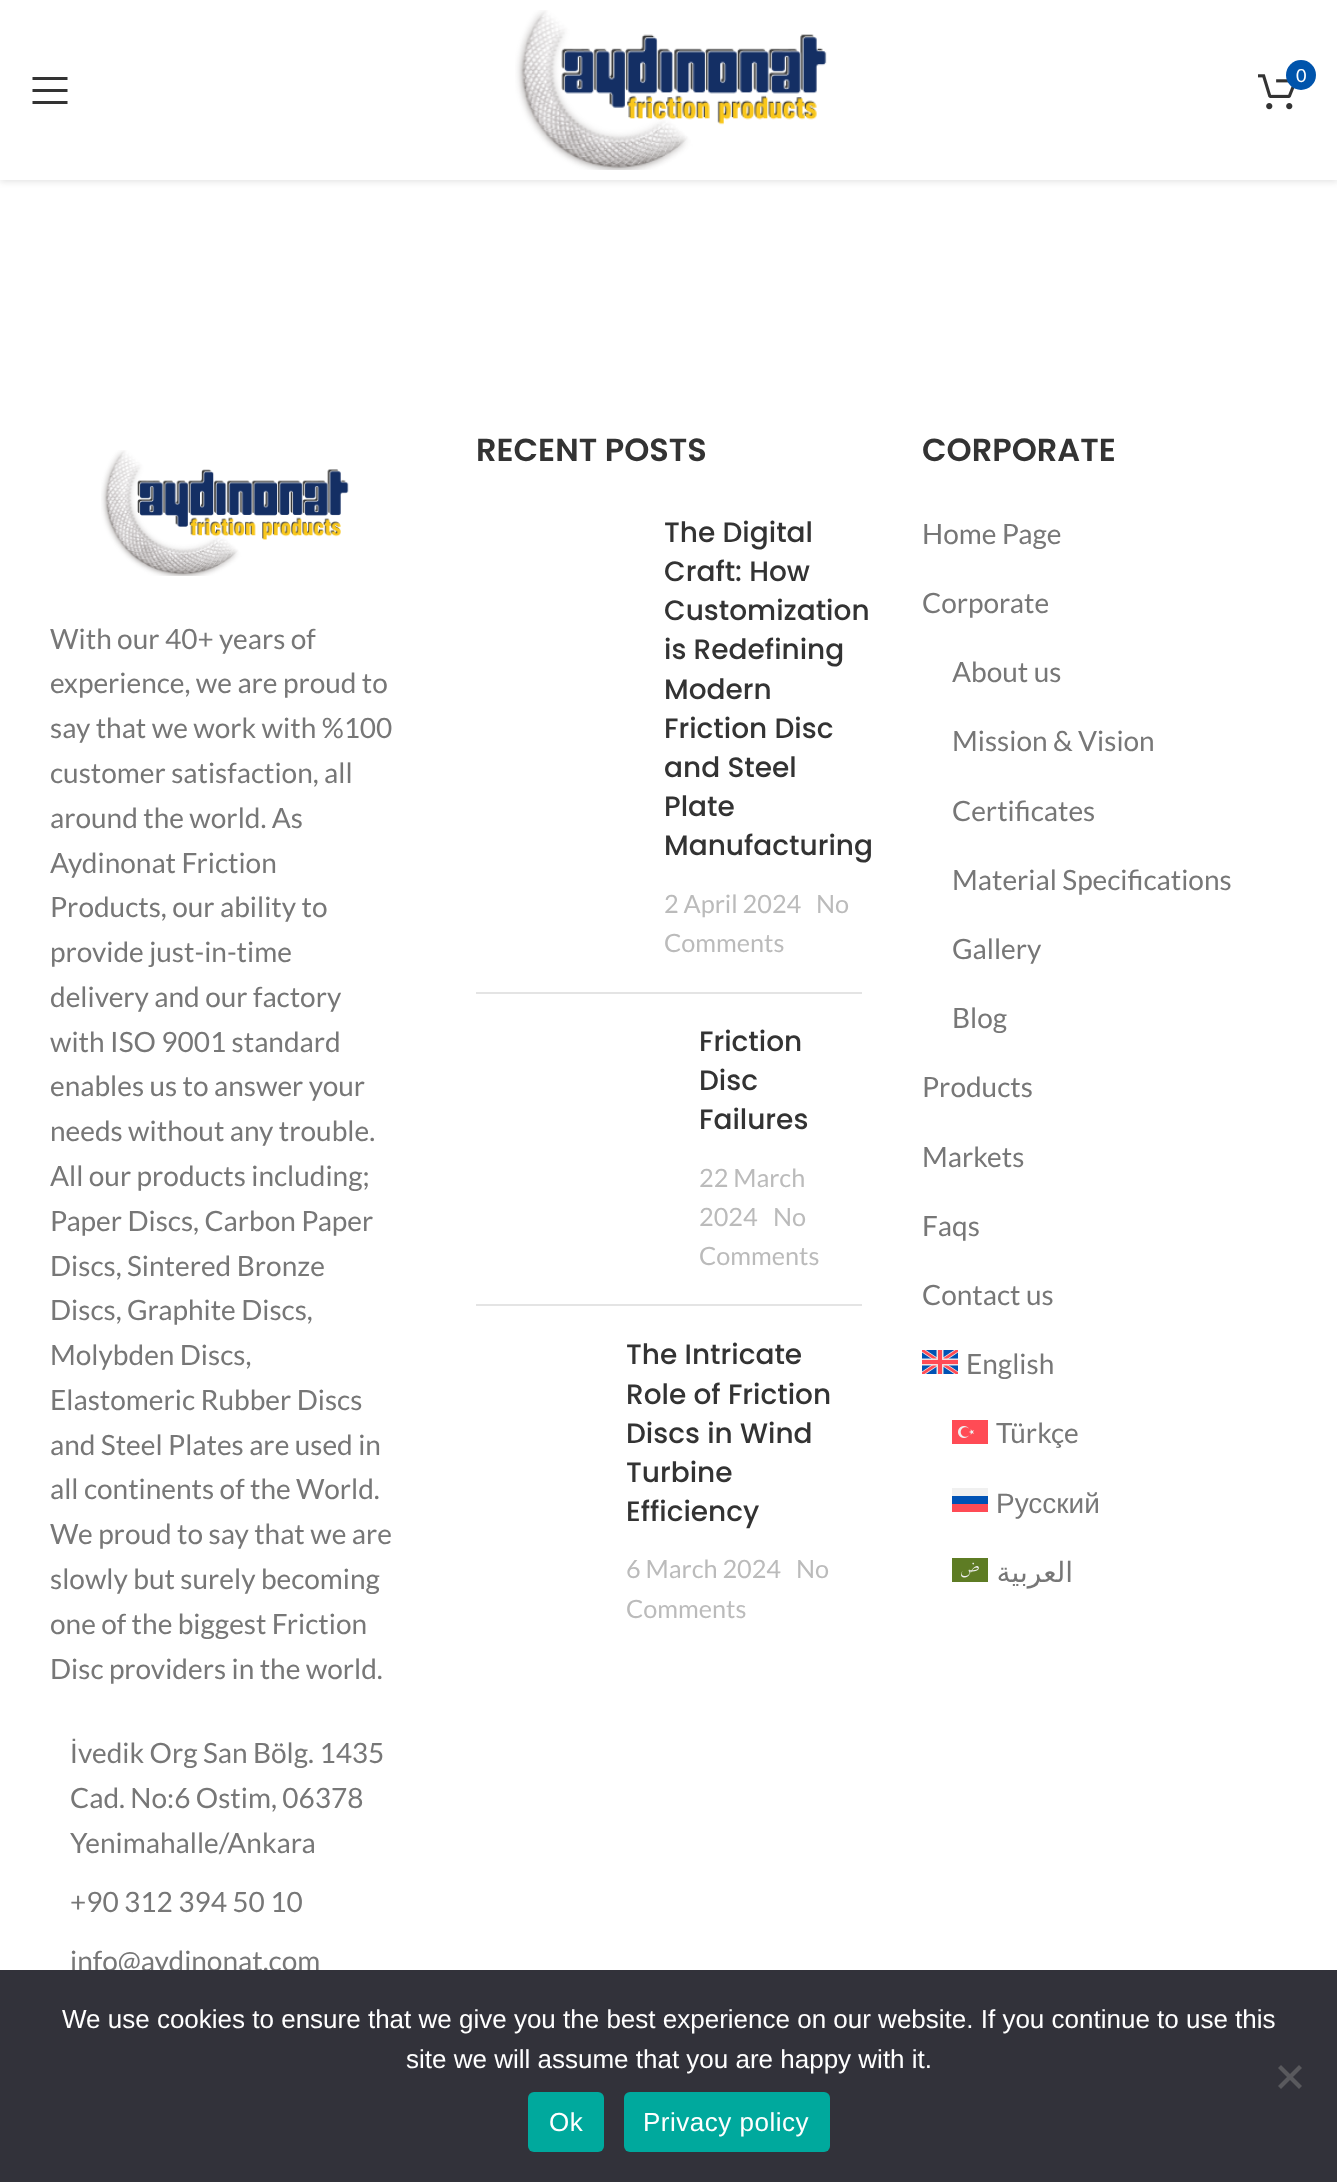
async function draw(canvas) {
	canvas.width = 1337;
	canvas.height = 2182;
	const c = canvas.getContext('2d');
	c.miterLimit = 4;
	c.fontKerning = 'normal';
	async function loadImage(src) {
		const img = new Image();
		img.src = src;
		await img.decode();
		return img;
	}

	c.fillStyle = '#fff';
	c.fillRect(0, 0, 1337, 2182);
	c.fillStyle = '#0000001a';
	c.filter = 'blur(3px)';
	c.beginPath();
	c.rect(0, 2, 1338, 180);
	c.fill();
	c.filter = 'none';
	c.fillStyle = '#fff';
	c.fillRect(0, 0, 1337, 180);
	c.drawImage(await loadImage('img1.png'), 515, 10, 312, 160);
	c.drawImage(await loadImage('img2.png'), 1258, 74, 37, 36);
	c.fillStyle = '#0054ac';
	c.beginPath();
	c.arc(1301, 75, 15, 0, 2 * Math.PI);
	c.fill();
	c.font = '18px Lato';
	c.fillStyle = '#fff';
	c.fillText('0', 1296, 82);
	c.fillStyle = '#333';
	c.beginPath();
	c.moveTo(32.5, 80);
	c.lineTo(67.5, 80);
	c.lineTo(67.5, 77);
	c.lineTo(32.5, 77);
	c.closePath();
	c.moveTo(32.5, 92);
	c.lineTo(67.5, 92);
	c.lineTo(67.5, 89);
	c.lineTo(32.5, 89);
	c.closePath();
	c.moveTo(32.5, 104);
	c.lineTo(67.5, 104);
	c.lineTo(67.5, 101);
	c.lineTo(32.5, 101);
	c.closePath();
	c.fill();
	c.drawImage(await loadImage('img3.png'), 101, 450, 248, 126);
	c.font = '28px Lato';
	c.fillStyle = '#777';
	for (const [text, x, y] of [
		['With our 40+ years of', 50, 649],
		['experience, we are proud to', 50, 693],
		['say that we work with %100', 50, 738],
		['customer satisfaction, all', 50, 783],
		['around the world. As', 50, 828],
		['Aydinonat Friction', 50, 873],
		['Products, our ability to', 50, 917],
		['provide just-in-time', 50, 962],
		['delivery and our factory', 50, 1007],
		['with ISO 9001 standard', 50, 1052],
		['enables us to answer your', 50, 1096],
		['needs without any trouble.', 50, 1141],
		['All our products including;', 50, 1186],
		['Paper Discs, Carbon Paper', 50, 1231],
		['Discs, Sintered Bronze', 50, 1276],
		['Discs, Graphite Discs,', 50, 1320],
		['Molybden Discs,', 50, 1365],
		['Elastomeric Rubber Discs', 50, 1410],
		['and Steel Plates are used in', 50, 1455],
		['all continents of the World.', 50, 1499],
		['We proud to say that we are', 50, 1544],
		['slowly but surely becoming', 50, 1589],
		['one of the biggest Friction', 50, 1634],
		['Disc providers in the world.', 50, 1679],
	]) {
		c.fillText(text, x, y);
	}
	c.font = '28px Liberation Sans';
	c.fillText('İ', 70, 1763);
	c.font = '28px Lato';
	for (const [text, x, y] of [
		['vedik Org San Bölg. 1435', 78, 1763],
		['Cad. No:6 Ostim, 06378', 70, 1808],
		['Yenimahalle/Ankara', 70, 1853],
		['+90 312 394 50 10', 70, 1912],
		['info@aydinonat.com', 70, 1971],
	]) {
		c.fillText(text, x, y);
	}
	c.font = '600 32px Poppins';
	c.fillStyle = '#333';
	c.fillText('RECENT POSTS', 476, 461);
	c.fillStyle = '#e4e4e4';
	c.fillRect(476, 992, 386, 2);
	c.font = '500 28px Poppins';
	c.fillStyle = '#333';
	for (const [text, x, y] of [
		['The Digital', 664, 542],
		['Craft: How', 664, 581],
		['Customization', 664, 620],
		['is Redefining', 664, 659],
		['Modern', 664, 699],
		['Friction Disc', 664, 738],
		['and Steel', 664, 777],
		['Plate', 664, 816],
		['Manufacturing', 664, 855],
	]) {
		c.fillText(text, x, y);
	}
	c.font = '25.25px Lato';
	c.fillStyle = '#bbb';
	for (const [text, x, y] of [
		['2 April 2024', 664, 913],
		['No', 816, 913],
		['Comments', 664, 952],
	]) {
		c.fillText(text, x, y);
	}
	c.fillStyle = '#e4e4e4';
	c.fillRect(476, 1304, 386, 2);
	c.font = '500 28px Poppins';
	c.fillStyle = '#333';
	for (const [text, x, y] of [
		['Friction', 699, 1051],
		['Disc', 699, 1090],
		['Failures', 699, 1129],
	]) {
		c.fillText(text, x, y);
	}
	c.font = '25.25px Lato';
	c.fillStyle = '#bbb';
	for (const [text, x, y] of [
		['22 March', 699, 1187],
		['2024', 699, 1226],
		['No', 773, 1226],
		['Comments', 699, 1265],
	]) {
		c.fillText(text, x, y);
	}
	c.font = '500 28px Poppins';
	c.fillStyle = '#333';
	for (const [text, x, y] of [
		['The Intricate', 626, 1364],
		['Role of Friction', 626, 1404],
		['Discs in Wind', 626, 1443],
		['Turbine', 626, 1482],
		['Efficiency', 626, 1521],
	]) {
		c.fillText(text, x, y);
	}
	c.font = '25.25px Lato';
	c.fillStyle = '#bbb';
	for (const [text, x, y] of [
		['6 March 2024', 626, 1578],
		['No', 796, 1578],
		['Comments', 626, 1618],
	]) {
		c.fillText(text, x, y);
	}
	c.font = '600 32px Poppins';
	c.fillStyle = '#333';
	c.fillText('CORPORATE', 922, 461);
	c.font = '28px Lato';
	c.fillStyle = '#777';
	for (const [text, x, y] of [
		['Home Page', 922, 544],
		['Corporate', 922, 613],
		['About us', 952, 682],
		['Mission & Vision', 952, 751],
		['Certificates', 952, 821],
		['Material Specifications', 952, 890],
		['Gallery', 952, 959],
		['Blog', 952, 1028],
		['Products', 922, 1097],
		['Markets', 922, 1167],
		['Faqs', 922, 1236],
		['Contact us', 922, 1305],
	]) {
		c.fillText(text, x, y);
	}
	c.drawImage(await loadImage('img4.png'), 922, 1350, 36, 24);
	c.fillText('English', 966, 1374);
	c.drawImage(await loadImage('img5.png'), 952, 1420, 36, 24);
	c.fillText('Türkçe', 996, 1443);
	c.fillStyle = '#f0f0f0';
	c.fillRect(952, 1488, 36, 8);
	c.font = '28px Liberation Sans';
	c.fillStyle = '#777';
	c.fillText('Русский', 996, 1513);
	c.fillStyle = '#0052b4';
	c.fillRect(952, 1496, 36, 8);
	c.fillStyle = '#ff4b55';
	c.fillRect(952, 1504, 36, 8);
	c.drawImage(await loadImage('img6.png'), 952, 1558, 36, 24);
	c.direction = 'rtl';
	c.font = '28px DejaVu Sans';
	c.fillStyle = '#777';
	c.fillText('العربية', 1073, 1582);
	c.fillStyle = '#32323a';
	c.fillRect(0, 1970, 1337, 212);
	c.direction = 'ltr';
	c.font = '26px Liberation Sans';
	c.fillStyle = '#fff';
	c.fillText('We use cookies to ensure that we give you the best experience on our website. If you continue to use this', 62, 2028);
	c.fillText('site we will assume that you are happy with it.', 406, 2068);
	c.fillStyle = '#59595d';
	c.beginPath();
	c.moveTo(1299, 2065);
	c.lineTo(1302, 2068);
	c.lineTo(1281, 2089);
	c.lineTo(1278, 2086);
	c.closePath();
	c.fill();
	c.beginPath();
	c.moveTo(1278, 2068);
	c.lineTo(1281, 2065);
	c.lineTo(1302, 2086);
	c.lineTo(1299, 2089);
	c.closePath();
	c.fill();
	c.fillStyle = '#00a99d';
	c.beginPath();
	c.roundRect(528, 2092, 76, 60, 6);
	c.fill();
	c.letterSpacing = '0.5px';
	c.fillStyle = '#fff';
	c.fillText('Ok', 549, 2131);
	c.fillStyle = '#00a99d';
	c.beginPath();
	c.roundRect(624, 2092, 206, 60, 6);
	c.fill();
	c.fillStyle = '#fff';
	c.fillText('Privacy policy', 643, 2131);
}

draw(document.querySelector('canvas'));
